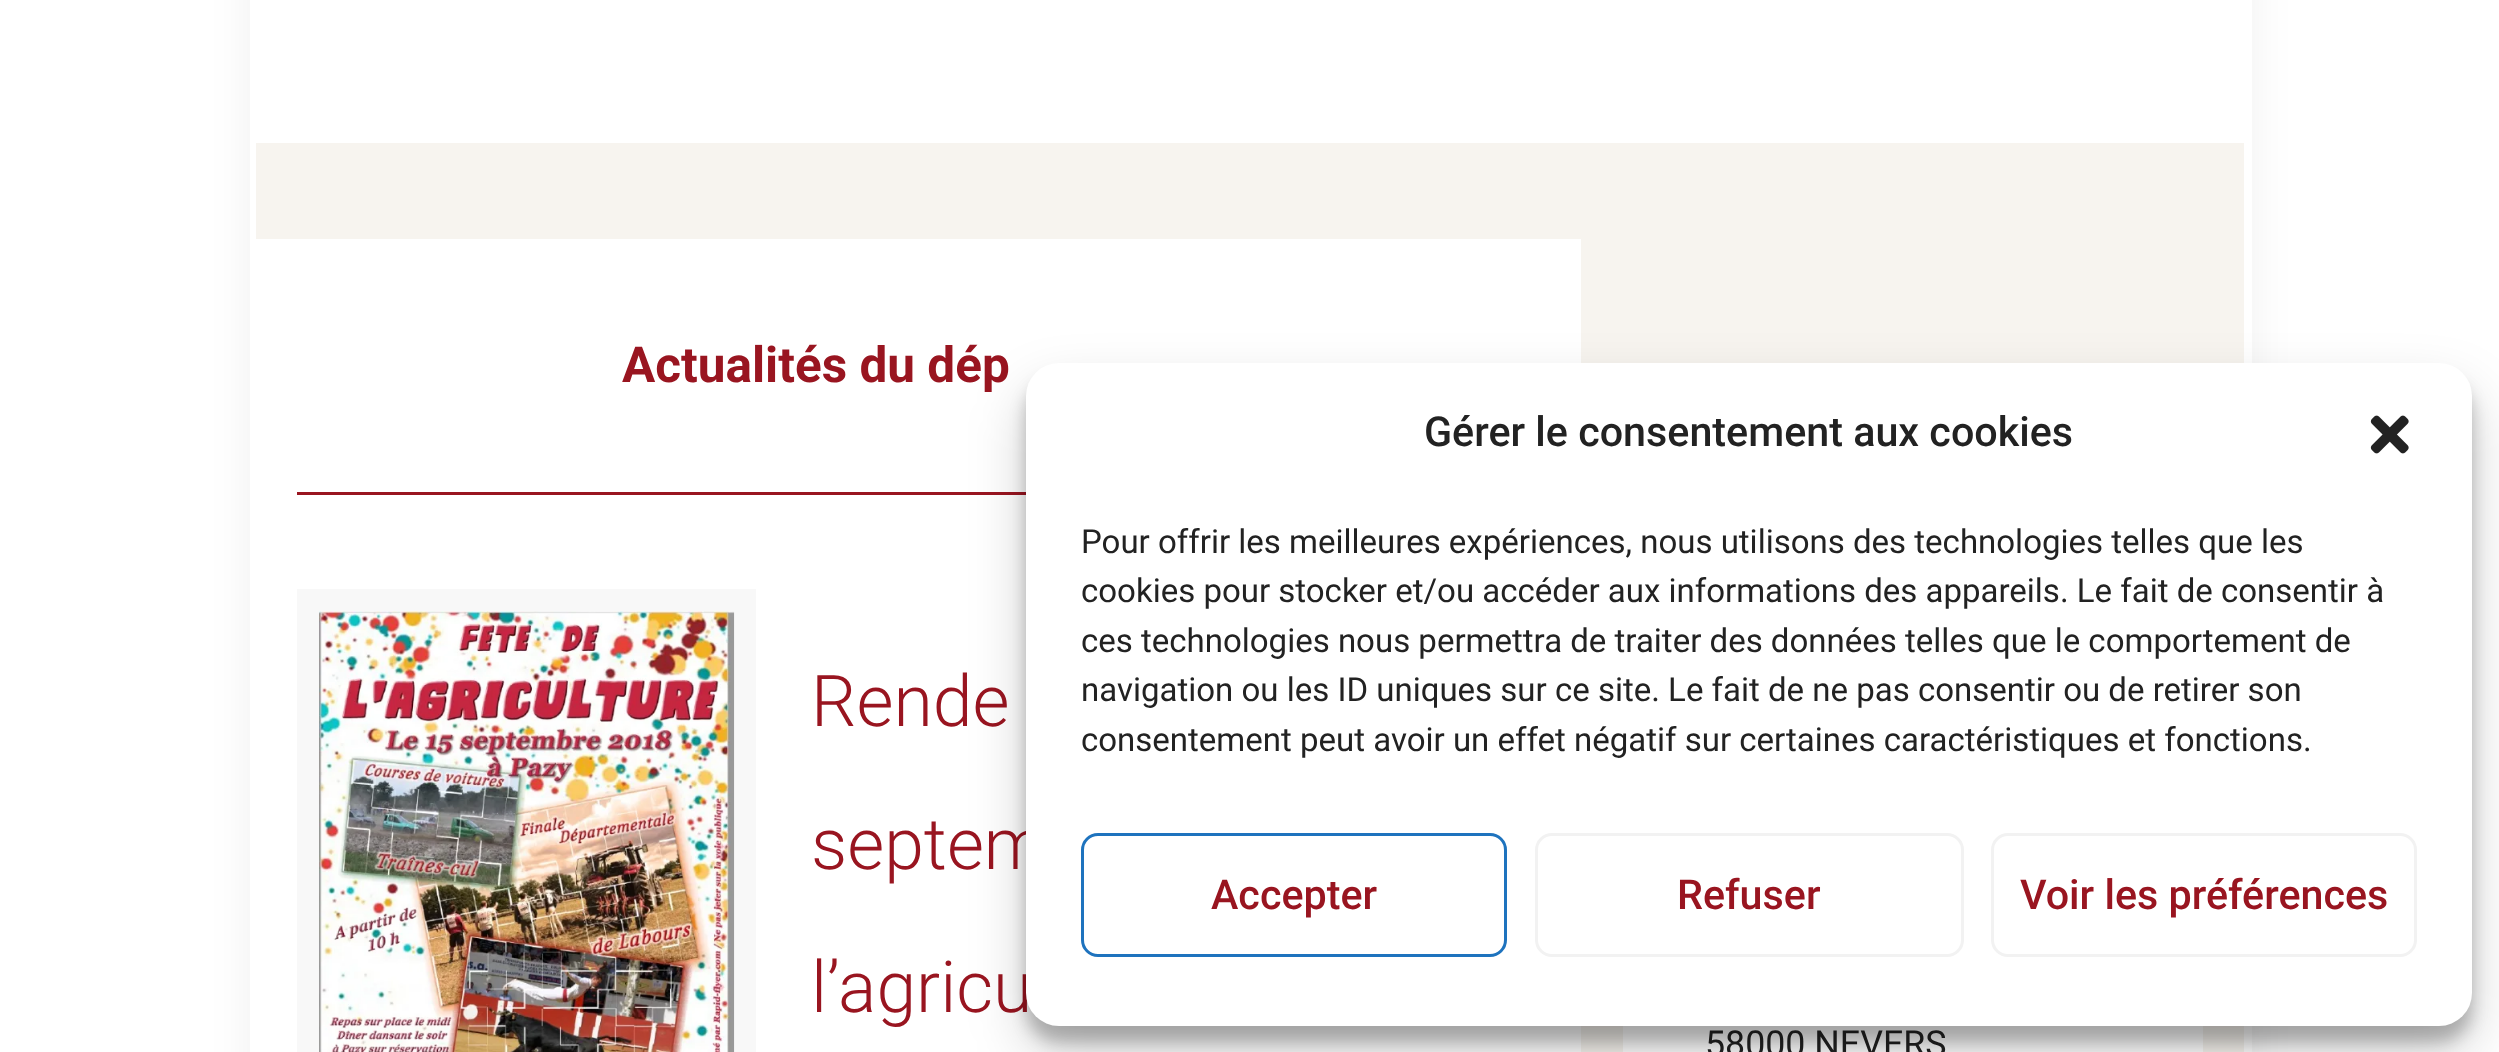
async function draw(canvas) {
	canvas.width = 2499;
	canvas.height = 1052;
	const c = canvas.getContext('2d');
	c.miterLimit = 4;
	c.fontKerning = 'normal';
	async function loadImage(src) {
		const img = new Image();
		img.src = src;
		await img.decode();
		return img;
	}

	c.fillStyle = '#fff';
	c.fillRect(0, 0, 2499, 1052);
	c.fillStyle = '#0000000f';
	c.filter = 'blur(20.5px)';
	c.beginPath();
	c.rect(250, -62, 2002, 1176);
	c.fill();
	c.filter = 'none';
	c.fillStyle = '#fff';
	c.fillRect(250, 0, 2002, 1052);
	c.fillStyle = '#f7f4ef';
	c.fillRect(256, 143, 1988, 96);
	c.font = 'bold 49.5px Roboto';
	c.fillStyle = '#991520';
	c.fillText('Actualités du dép', 622, 382);
	c.fillRect(297, 492, 729, 3);
	c.strokeStyle = '#f8f8f8';
	c.lineWidth = 22;
	c.strokeRect(308, 600, 437, 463);
	c.drawImage(await loadImage('img1.png'), 319, 611, 416, 441);
	c.font = '300 71.5px Roboto';
	for (const [text, x, y] of [
		['Rende', 811, 726],
		['septem', 811, 869],
		['l’agricu', 811, 1012],
	]) {
		c.fillText(text, x, y);
	}
	c.fillStyle = '#f7f4ef';
	c.fillRect(1581, 239, 663, 813);
	c.fillStyle = '#fff';
	c.fillRect(1623, 1026, 580, 26);
	c.font = '35.75px Roboto';
	c.fillStyle = '#222';
	c.fillText('58000 NEVERS', 1705, 1056);
	c.fillStyle = '#0000003b';
	c.filter = 'blur(8px)';
	c.beginPath();
	c.roundRect(1026, 380, 1446, 662, 33);
	c.fill();
	c.filter = 'none';
	c.fillStyle = '#00000030';
	c.filter = 'blur(27.5px)';
	c.beginPath();
	c.roundRect(1026, 391, 1446, 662, 33);
	c.fill();
	c.filter = 'none';
	c.fillStyle = '#fff';
	c.beginPath();
	c.roundRect(1026, 363, 1446, 663, 33);
	c.fill();
	c.font = '500 41.25px Roboto';
	c.fillStyle = '#222';
	c.fillText('Gérer le consentement aux cookies', 1424, 446);
	c.drawImage(await loadImage('img2.png'), 2370, 415, 39, 39);
	c.font = '33px Roboto';
	for (const [text, x, y] of [
		['Pour offrir les meilleures expériences, nous utilisons des technologies telles que les', 1081, 553],
		['cookies pour stocker et/ou accéder aux informations des appareils. Le fait de consentir à', 1081, 602],
		['ces technologies nous permettra de traiter des données telles que le comportement de', 1081, 652],
		['navigation ou les ID uniques sur ce site. Le fait de ne pas consentir ou de retirer son', 1081, 701],
		['consentement peut avoir un effet négatif sur certaines caractéristiques et fonctions.', 1081, 751],
	]) {
		c.fillText(text, x, y);
	}
	c.beginPath();
	c.roundRect(1082.5, 834.5, 423, 121, 15.5);
	c.strokeStyle = '#1e73be';
	c.lineWidth = 3;
	c.stroke();
	c.font = '500 41.25px Roboto';
	c.fillStyle = '#991520';
	c.fillText('Accepter', 1211, 909);
	c.beginPath();
	c.roundRect(1536.5, 834.5, 426, 121, 15.5);
	c.strokeStyle = '#f2f2f2';
	c.stroke();
	c.fillText('Refuser', 1677, 909);
	c.beginPath();
	c.roundRect(1992.5, 834.5, 423, 121, 15.5);
	c.stroke();
	c.fillText('Voir les préférences', 2020, 909);
}

draw(document.querySelector('canvas'));
